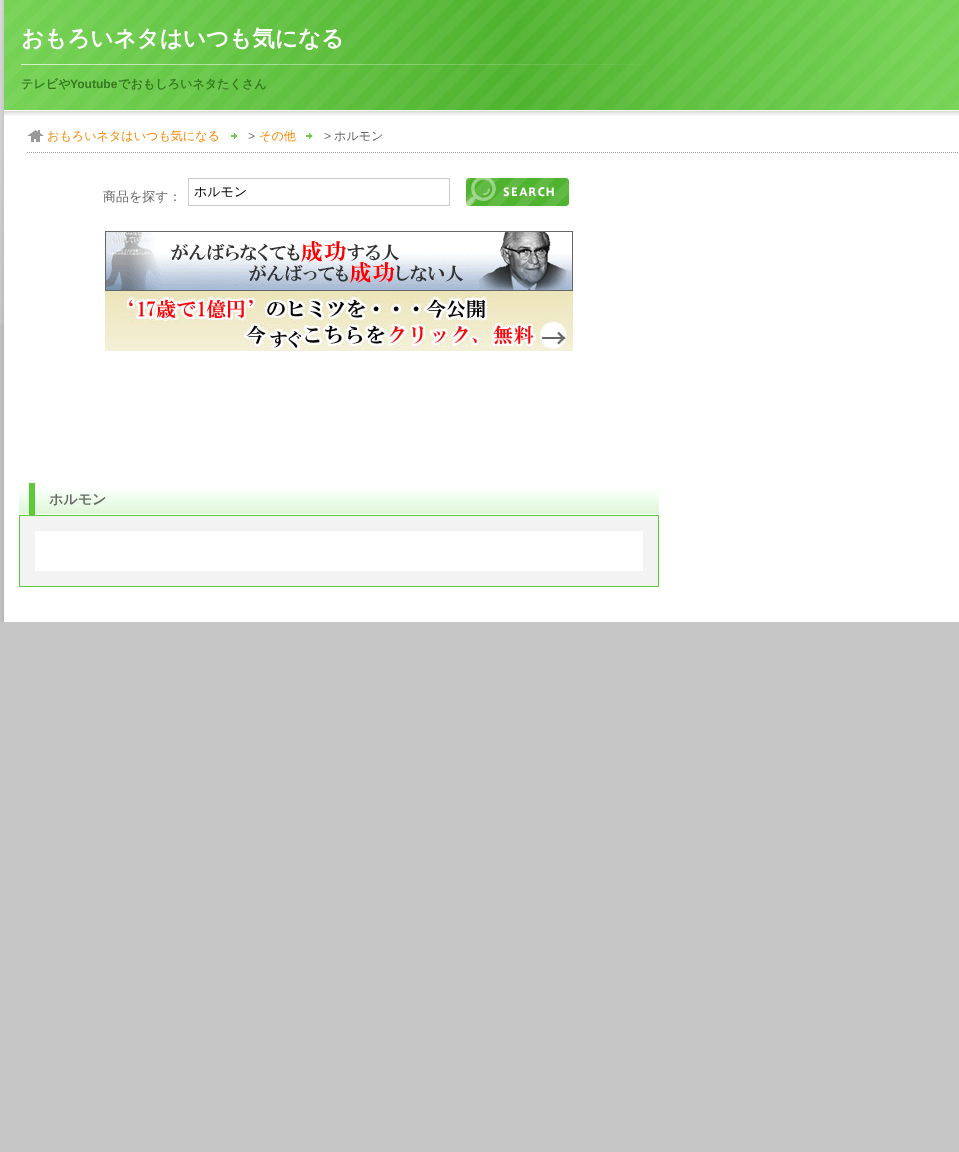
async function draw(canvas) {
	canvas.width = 959;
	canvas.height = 1152;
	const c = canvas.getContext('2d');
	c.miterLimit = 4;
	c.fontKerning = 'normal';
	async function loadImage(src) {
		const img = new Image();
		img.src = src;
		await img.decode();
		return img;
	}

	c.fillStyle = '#c6c6c6';
	c.fillRect(0, 0, 959, 1152);
	c.drawImage(await loadImage('img1.png'), 0, 0, 4, 324);
	c.drawImage(await loadImage('img2.png'), 0, 0, 4, 110);
	c.drawImage(await loadImage('img3.png'), 4, 0, 955, 110);
	c.drawImage(await loadImage('img4.png'), 21, 64, 628, 1);
	c.font = 'bold 22.6px WenQuanYi Zen Hei';
	c.fillStyle = '#fff';
	c.fillText('おもろいネタはいつも気になる', 21, 46);
	c.font = 'bold 12.1px WenQuanYi Zen Hei';
	c.fillStyle = '#367920';
	c.fillText('テレビや', 21, 88);
	c.font = 'bold 12.1px Liberation Sans';
	c.fillText('Youtube', 70, 88);
	c.font = 'bold 12.1px WenQuanYi Zen Hei';
	c.fillText('でおもしろいネタたくさん', 118, 88);
	c.drawImage(await loadImage('img5.png'), 0, 110, 959, 512);
	c.drawImage(await loadImage('img6.png'), 4, 111, 955, 5);
	c.drawImage(await loadImage('img7.png'), 27, 130, 17, 12);
	c.beginPath();
	c.moveTo(27, 152.5);
	c.lineTo(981, 152.5);
	c.strokeStyle = '#999';
	c.setLineDash([1, 1]);
	c.stroke();
	c.font = '500 12.1px WenQuanYi Zen Hei';
	c.fillStyle = '#ff8702';
	c.fillText('おもろいネタはいつも気になる', 47, 140);
	c.drawImage(await loadImage('img8.png'), 231, 133, 6, 6);
	c.font = '12.1px Liberation Sans';
	c.fillStyle = '#666';
	c.fillText('>', 248, 140);
	c.font = '500 12.1px WenQuanYi Zen Hei';
	c.fillStyle = '#ff8702';
	c.fillText('その他', 259, 140);
	c.drawImage(await loadImage('img8.png'), 306, 133, 6, 6);
	c.font = '12.1px Liberation Sans';
	c.fillStyle = '#666';
	c.fillText('>', 324, 140);
	c.font = '500 12.1px WenQuanYi Zen Hei';
	c.fillText('ホルモン', 334, 140);
	c.font = '500 13px WenQuanYi Zen Hei';
	c.fillText('商品を探す：', 103, 201);
	c.strokeStyle = '#ccc';
	c.setLineDash([]);
	c.strokeRect(188.5, 178.5, 261, 27);
	c.fillStyle = '#000';
	c.fillText('ホルモン', 194, 196);
	c.drawImage(await loadImage('img9.png'), 466, 178, 103, 28);
	c.drawImage(await loadImage('img10.png'), 105, 231, 468, 120);
	c.drawImage(await loadImage('img11.png'), 19, 483, 640, 32);
	c.font = 'bold 14px WenQuanYi Zen Hei';
	c.fillStyle = '#666';
	c.fillText('ホルモン', 49, 504);
	c.strokeStyle = '#5cca37';
	c.strokeRect(19.5, 515.5, 639, 71);
	c.strokeStyle = '#f3f3f3';
	c.lineWidth = 15;
	c.strokeRect(27.5, 523.5, 623, 55);
}

draw(document.querySelector('canvas'));
